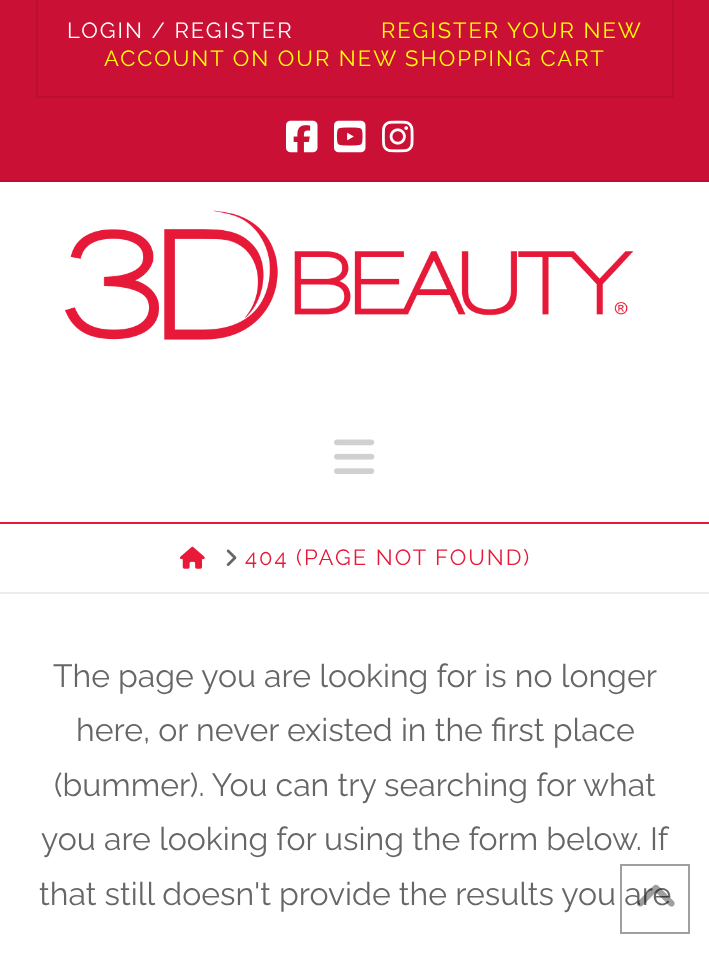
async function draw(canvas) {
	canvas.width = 709;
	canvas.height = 953;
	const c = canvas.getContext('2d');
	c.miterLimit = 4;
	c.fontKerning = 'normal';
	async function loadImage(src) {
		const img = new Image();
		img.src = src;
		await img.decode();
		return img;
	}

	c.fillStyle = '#fff';
	c.fillRect(0, 0, 709, 953);
	c.fillStyle = '#ca1035';
	c.fillRect(0, 0, 709, 180);
	c.fillStyle = '#bb0f31';
	c.fillRect(0, 180, 709, 2);
	c.beginPath();
	c.moveTo(674, 0);
	c.lineTo(674, 98);
	c.lineTo(672, 96);
	c.lineTo(672, 0);
	c.closePath();
	c.fill();
	c.fillStyle = '#00000012';
	c.beginPath();
	c.moveTo(674, 98);
	c.lineTo(36, 98);
	c.lineTo(38, 96);
	c.lineTo(672, 96);
	c.closePath();
	c.fill();
	c.beginPath();
	c.moveTo(36, 98);
	c.lineTo(36, 0);
	c.lineTo(38, 0);
	c.lineTo(38, 96);
	c.closePath();
	c.fill();
	c.letterSpacing = '2px';
	c.font = '22px Raleway';
	c.fillStyle = '#fff';
	c.fillText('LOGIN / REGISTER', 67, 38);
	c.fillStyle = '#ff0';
	c.fillText('REGISTER YOUR NEW', 381, 38);
	c.fillText('ACCOUNT ON OUR NEW SHOPPING CART', 104, 66);
	c.drawImage(await loadImage('img1.png'), 286, 120, 32, 33);
	c.drawImage(await loadImage('img2.png'), 334, 120, 32, 33);
	c.drawImage(await loadImage('img3.png'), 382, 120, 32, 33);
	c.drawImage(await loadImage('img4.png'), 64, 210, 569, 130);
	c.fillStyle = '#e81939';
	c.fillRect(0, 522, 709, 2);
	c.drawImage(await loadImage('img5.png'), 334, 439, 41, 35);
	c.fillStyle = '#ececec';
	c.fillRect(0, 592, 709, 2);
	c.drawImage(await loadImage('img6.png'), 180, 546, 25, 23);
	c.drawImage(await loadImage('img7.png'), 226, 549, 11, 17);
	c.fillStyle = '#e81939';
	c.fillText('404 (PAGE NOT FOUND)', 245, 565);
	c.letterSpacing = '0px';
	c.font = '32px Raleway';
	c.fillStyle = '#666';
	for (const [text, x, y] of [
		['The page you are looking for is no longer', 53, 687],
		['here, or never existed in the first place', 76, 741],
		['(bummer). You can try searching for what', 54, 796],
		['you are looking for using the form below. If', 41, 850],
		['that still doesn\'t provide the results you are', 39, 905],
	]) {
		c.fillText(text, x, y);
	}
	c.strokeStyle = '#9f9f9f';
	c.lineWidth = 2;
	c.strokeRect(621, 865, 68, 68);
	c.drawImage(await loadImage('img8.png'), 637, 884, 38, 23);
}

draw(document.querySelector('canvas'));
